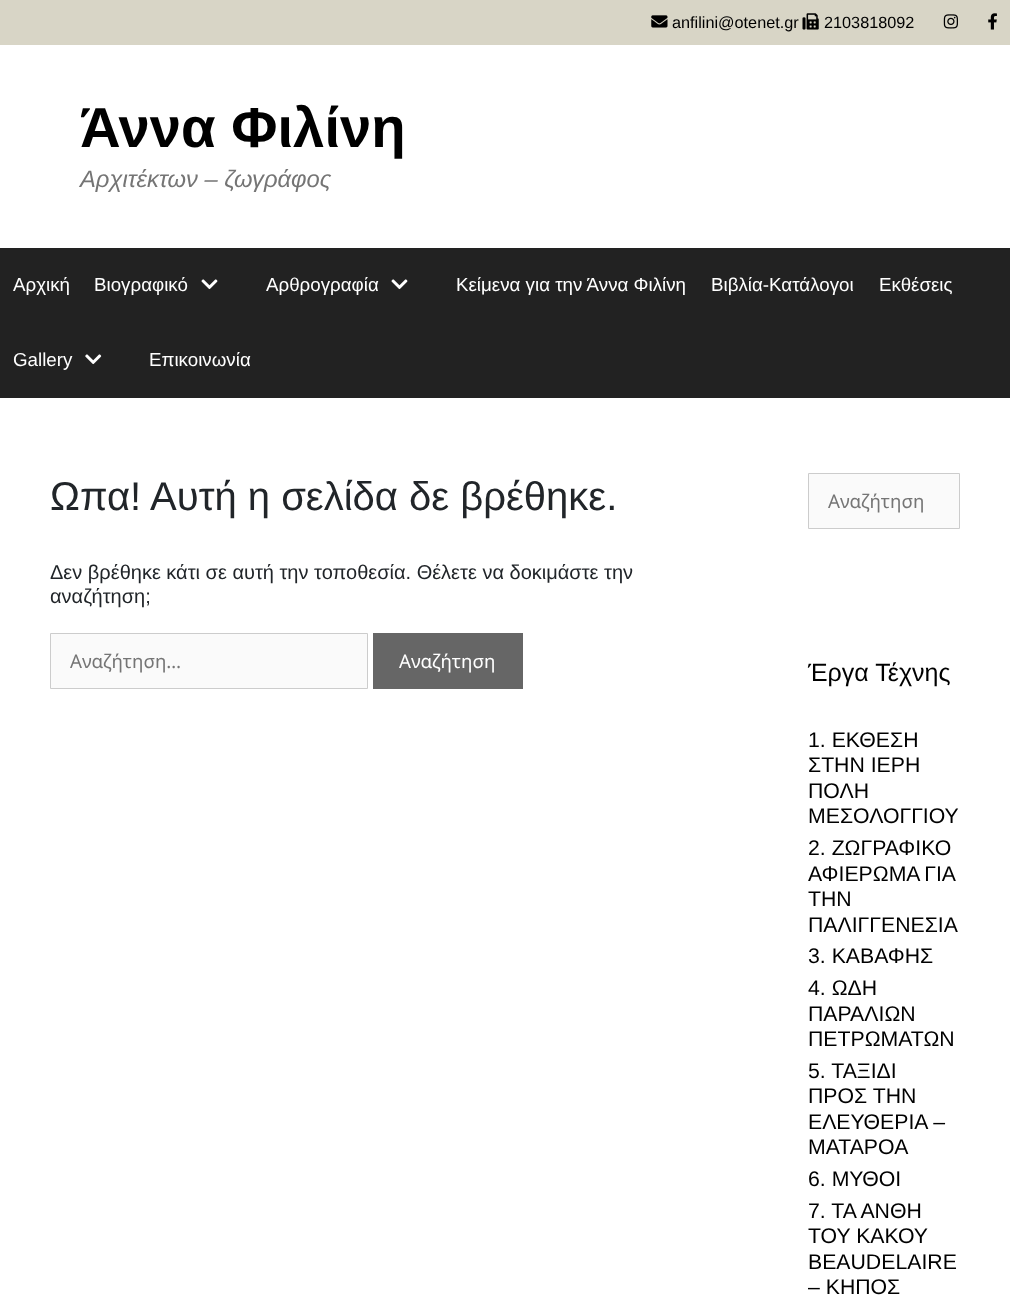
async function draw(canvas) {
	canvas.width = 1010;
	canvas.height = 1311;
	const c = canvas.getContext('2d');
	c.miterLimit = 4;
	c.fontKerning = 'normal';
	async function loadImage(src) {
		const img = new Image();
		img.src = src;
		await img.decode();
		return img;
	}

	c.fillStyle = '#fff';
	c.fillRect(0, 0, 1010, 1311);
	c.fillStyle = '#d8d5c6';
	c.fillRect(0, 0, 1010, 45);
	c.drawImage(await loadImage('img1.png'), 651, 15, 17, 13);
	c.font = '16.25px Liberation Sans';
	c.fillStyle = '#000';
	c.fillText('anfilini@otenet.gr', 672, 28);
	c.drawImage(await loadImage('img2.png'), 802, 13, 17, 17);
	c.fillText('2103818092', 824, 28);
	c.drawImage(await loadImage('img3.png'), 943, 14, 15, 15);
	c.drawImage(await loadImage('img4.png'), 988, 13, 9, 17);
	c.font = 'bold 56.25px Liberation Sans';
	c.fillText('Άννα Φιλίνη', 80, 147);
	c.font = 'italic 23.75px Liberation Sans';
	c.fillStyle = '#757575';
	c.fillText('Αρχιτέκτων – ζωγράφος', 80, 187);
	c.fillStyle = '#222';
	c.fillRect(0, 248, 1010, 150);
	c.font = '18.75px Liberation Sans';
	c.fillStyle = '#fff';
	c.fillText('Αρχική', 13, 291);
	c.fillText('Βιογραφικό', 94, 291);
	c.drawImage(await loadImage('img5.png'), 201, 279, 17, 11);
	c.fillText('Αρθρογραφία', 266, 291);
	c.drawImage(await loadImage('img5.png'), 391, 279, 17, 11);
	for (const [text, x, y] of [
		['Κείμενα για την Άννα Φιλίνη', 456, 291],
		['Βιβλία-Κατάλογοι', 711, 291],
		['Εκθέσεις', 879, 291],
		['Gallery', 13, 366],
	]) {
		c.fillText(text, x, y);
	}
	c.drawImage(await loadImage('img6.png'), 85, 354, 17, 11);
	c.fillText('Επικοινωνία', 149, 366);
	c.font = '40px Liberation Sans';
	c.fillStyle = '#212529';
	c.fillText('Ωπα! Αυτή η σελίδα δε βρέθηκε.', 50, 510);
	c.font = '20px Liberation Sans';
	c.fillText('Δεν βρέθηκε κάτι σε αυτή την τοποθεσία. Θέλετε να δοκιμάστε την', 50, 579);
	c.fillText('αναζήτηση;', 50, 603);
	c.fillStyle = '#fafafa';
	c.beginPath();
	c.rect(50.5, 633.5, 317, 55);
	c.fill();
	c.strokeStyle = '#ccc';
	c.stroke();
	c.font = '18.75px Noto Sans';
	c.fillStyle = '#757575';
	c.fillText('Αναζήτηση…', 70, 668);
	c.fillStyle = '#666';
	c.fillRect(373, 633, 150, 56);
	c.fillStyle = '#fff';
	c.fillText('Αναζήτηση', 399, 668);
	c.fillStyle = '#fafafa';
	c.beginPath();
	c.rect(808.5, 473.5, 151, 55);
	c.fill();
	c.stroke();
	c.fillStyle = '#757575';
	c.fillText('Αναζήτηση', 828, 508);
	c.font = '25px Liberation Sans';
	c.fillStyle = '#000';
	c.fillText('Έργα Τέχνης', 808, 681);
	c.font = '21.25px Liberation Sans';
	for (const [text, x, y] of [
		['1. ΕΚΘΕΣΗ', 808, 747],
		['ΣΤΗΝ ΙΕΡΗ', 808, 772],
		['ΠΟΛΗ', 808, 798],
		['ΜΕΣΟΛΟΓΓΙΟΥ', 808, 823],
		['2. ΖΩΓΡΑΦΙΚΟ', 808, 855],
	]) {
		c.fillText(text, x, y);
	}
	c.wordSpacing = '-1px';
	c.fillText('ΑΦΙΕΡΩΜΑ ΓΙΑ', 808, 881);
	c.wordSpacing = '0px';
	for (const [text, x, y] of [
		['ΤΗΝ', 808, 906],
		['ΠΑΛΙΓΓΕΝΕΣΙΑ', 808, 932],
		['3. ΚΑΒΑΦΗΣ', 808, 963],
		['4. ΩΔΗ', 808, 995],
		['ΠΑΡΑΛΙΩΝ', 808, 1021],
		['ΠΕΤΡΩΜΑΤΩΝ', 808, 1046],
		['5. ΤΑΞΙΔΙ', 808, 1078],
		['ΠΡΟΣ ΤΗΝ', 808, 1103],
		['ΕΛΕΥΘΕΡΙΑ –', 808, 1129],
		['ΜΑΤΑΡΟΑ', 808, 1154],
		['6. ΜΥΘΟΙ', 808, 1186],
		['7. ΤΑ ΑΝΘΗ', 808, 1218],
		['ΤΟΥ ΚΑΚΟΥ', 808, 1243],
		['BEAUDELAIRE', 808, 1269],
		['– ΚΗΠΟΣ', 808, 1294],
	]) {
		c.fillText(text, x, y);
	}
}

draw(document.querySelector('canvas'));
